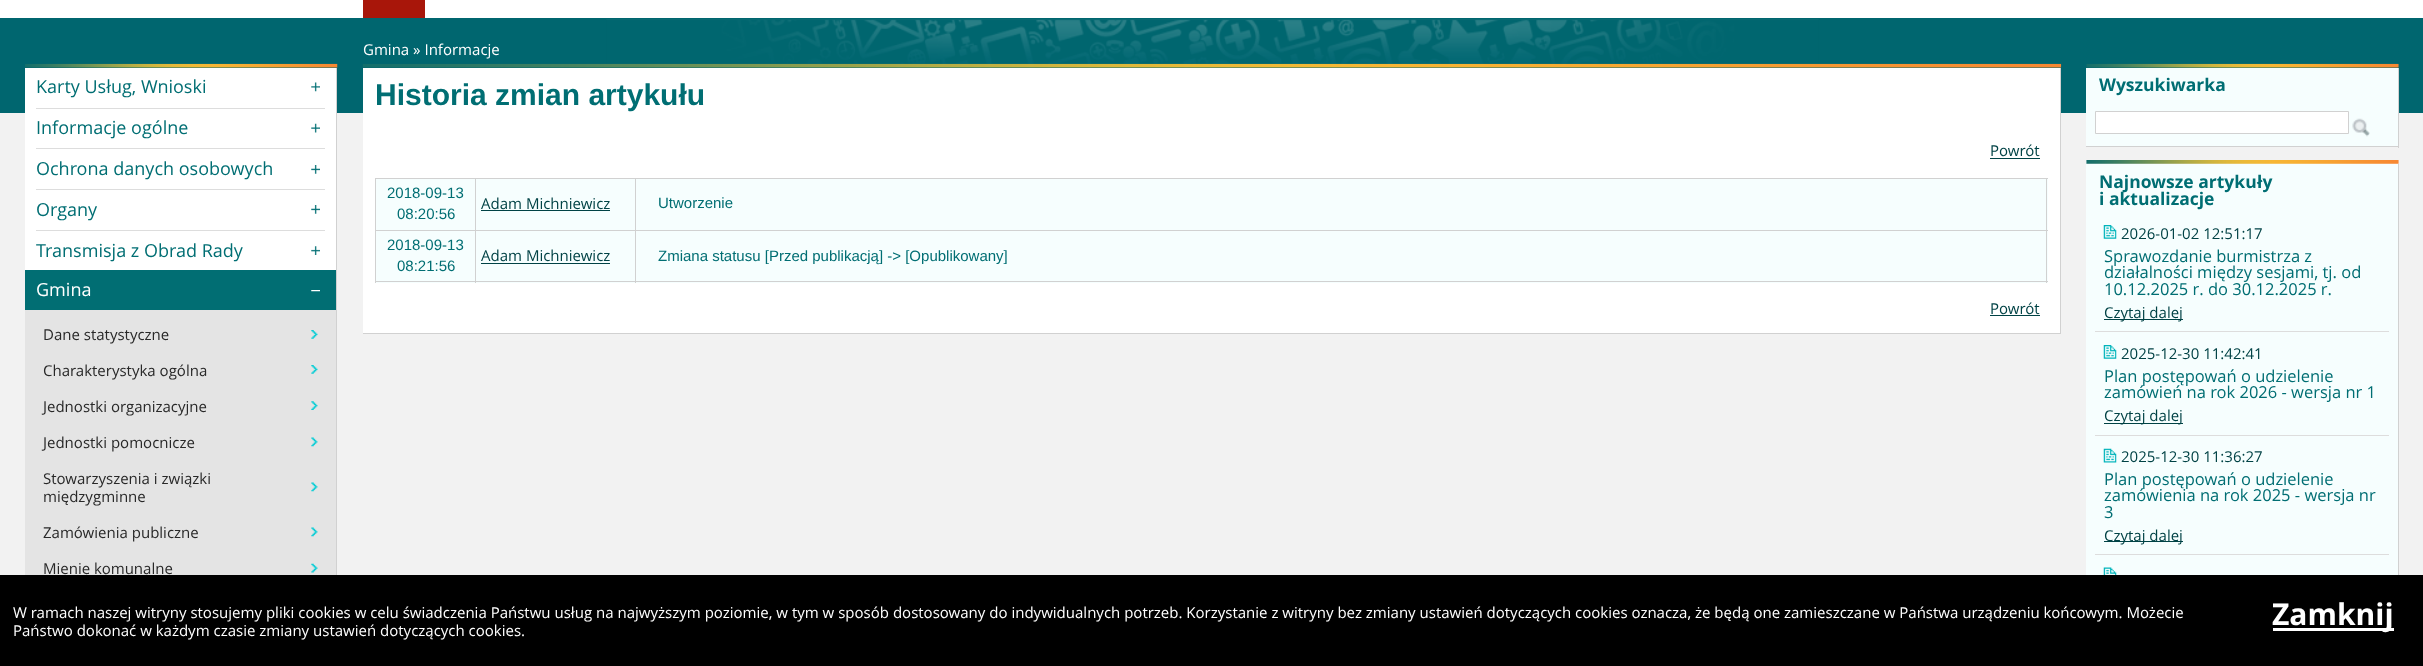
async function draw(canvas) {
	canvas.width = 2423;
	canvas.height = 666;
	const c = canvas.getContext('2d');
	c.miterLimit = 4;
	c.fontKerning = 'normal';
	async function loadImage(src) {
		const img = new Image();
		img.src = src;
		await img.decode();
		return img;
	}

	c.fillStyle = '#f2f2f2';
	c.fillRect(0, 0, 2423, 666);
	for (const [x, y, w, h, color] of [
		[0, 0, 2423, 18, '#fff'],
		[363, 0, 62, 18, '#a8160a'],
		[0, 18, 2423, 95, '#00666f'],
	]) {
		c.fillStyle = color;
		c.fillRect(x, y, w, h);
	}
	c.drawImage(await loadImage('img1.png'), 606, 19, 1213, 49);
	c.font = '15px Open Sans';
	c.fillStyle = '#fff';
	c.fillText('Gmina » Informacje', 363, 55);
	c.drawImage(await loadImage('img2.png'), 25, 63, 313, 5);
	c.fillRect(25, 68, 311, 202);
	c.fillStyle = '#d1d1d1';
	c.fillRect(336, 68, 1, 507);
	c.drawImage(await loadImage('img3.png'), 311, 82, 9, 10);
	c.font = '18px Open Sans';
	c.fillStyle = '#006e73';
	c.fillText('Karty Usług, Wnioski', 36, 93);
	c.drawImage(await loadImage('img4.png'), 311, 123, 9, 10);
	c.fillStyle = '#ddd';
	c.fillRect(36, 108, 289, 1);
	c.fillStyle = '#006e73';
	c.fillText('Informacje ogólne', 36, 134);
	c.drawImage(await loadImage('img5.png'), 311, 165, 9, 9);
	c.fillStyle = '#ddd';
	c.fillRect(36, 148, 289, 1);
	c.fillStyle = '#006e73';
	c.fillText('Ochrona danych osobowych', 36, 175);
	c.drawImage(await loadImage('img5.png'), 311, 205, 9, 9);
	c.fillStyle = '#ddd';
	c.fillRect(36, 189, 289, 1);
	c.fillStyle = '#006e73';
	c.fillText('Organy', 36, 216);
	c.drawImage(await loadImage('img6.png'), 311, 246, 9, 9);
	c.fillStyle = '#ddd';
	c.fillRect(36, 230, 289, 1);
	c.fillStyle = '#006e73';
	c.fillText('Transmisja z Obrad Rady', 36, 257);
	c.fillStyle = '#016e73';
	c.fillRect(25, 270, 311, 40);
	c.drawImage(await loadImage('img7.png'), 311, 290, 9, 2);
	c.fillStyle = '#fff';
	c.fillText('Gmina', 36, 296);
	c.fillStyle = '#e4e4e4';
	c.fillRect(25, 310, 311, 265);
	c.drawImage(await loadImage('img8.png'), 311, 330, 7, 9);
	c.font = '15px Open Sans';
	c.fillStyle = '#282828';
	c.fillText('Dane statystyczne', 43, 340);
	c.drawImage(await loadImage('img9.png'), 311, 365, 7, 9);
	c.fillText('Charakterystyka ogólna', 43, 376);
	c.drawImage(await loadImage('img10.png'), 311, 401, 7, 9);
	c.fillText('Jednostki organizacyjne', 43, 412);
	c.drawImage(await loadImage('img11.png'), 311, 437, 7, 10);
	c.fillText('Jednostki pomocnicze', 43, 448);
	c.drawImage(await loadImage('img11.png'), 311, 482, 7, 10);
	c.fillText('Stowarzyszenia i związki', 43, 484);
	c.fillText('międzygminne', 43, 502);
	c.drawImage(await loadImage('img11.png'), 311, 527, 7, 10);
	c.fillText('Zamówienia publiczne', 43, 538);
	c.drawImage(await loadImage('img12.png'), 311, 563, 7, 10);
	c.fillText('Mienie komunalne', 43, 574);
	c.drawImage(await loadImage('img13.png'), 362, 63, 1700, 5);
	for (const [x, y, w, h, color] of [
		[363, 68, 1697, 265, '#fff'],
		[2060, 68, 1, 266, '#d1d1d1'],
		[363, 333, 1698, 1, '#d1d1d1'],
	]) {
		c.fillStyle = color;
		c.fillRect(x, y, w, h);
	}
	c.font = 'bold 30px Liberation Sans';
	c.fillStyle = '#006e73';
	c.fillText('Historia zmian artykułu', 375, 105);
	c.font = '15px Open Sans';
	c.fillStyle = '#004245';
	c.fillText('Powrót', 1990, 156);
	for (const [x, y, w, h, color] of [
		[1990, 158, 50, 1, '#004245'],
		[376, 179, 99, 51, '#f6fefe'],
		[635, 178, 1413, 1, '#d1d1d1'],
		[635, 230, 1413, 1, '#d1d1d1'],
		[636, 231, 1412, 52, '#f6fefe'],
		[2046, 230, 1, 53, '#d1d1d1'],
		[635, 281, 1413, 1, '#d1d1d1'],
		[635, 230, 1, 53, '#d1d1d1'],
		[475, 230, 161, 1, '#d1d1d1'],
		[635, 178, 1, 53, '#d1d1d1'],
		[475, 178, 161, 1, '#d1d1d1'],
		[476, 231, 159, 52, '#f6fefe'],
		[475, 281, 161, 1, '#d1d1d1'],
		[475, 230, 1, 53, '#d1d1d1'],
		[375, 230, 101, 1, '#d1d1d1'],
		[475, 178, 1, 53, '#d1d1d1'],
		[375, 178, 101, 1, '#d1d1d1'],
		[376, 231, 99, 52, '#f6fefe'],
		[375, 281, 101, 1, '#d1d1d1'],
		[375, 230, 1, 53, '#d1d1d1'],
		[375, 178, 1, 53, '#d1d1d1'],
	]) {
		c.fillStyle = color;
		c.fillRect(x, y, w, h);
	}
	c.font = '15px Liberation Sans';
	c.fillStyle = '#006e73';
	c.fillText('2018-09-13', 387, 198);
	c.fillText('08:20:56', 397, 219);
	c.fillStyle = '#f6fefe';
	c.fillRect(476, 179, 159, 51);
	c.font = '15px Open Sans';
	c.fillStyle = '#004245';
	c.fillText('Adam Michniewicz', 481, 209);
	for (const [x, y, w, h, color] of [
		[481, 210, 129, 1, '#004245'],
		[636, 179, 1412, 51, '#f6fefe'],
		[2046, 178, 1, 53, '#d1d1d1'],
	]) {
		c.fillStyle = color;
		c.fillRect(x, y, w, h);
	}
	c.font = '15px Liberation Sans';
	c.fillStyle = '#006e73';
	for (const [text, x, y] of [
		['Utworzenie', 658, 208],
		['2018-09-13', 387, 250],
		['08:21:56', 397, 271],
	]) {
		c.fillText(text, x, y);
	}
	c.font = '15px Open Sans';
	c.fillStyle = '#004245';
	c.fillText('Adam Michniewicz', 481, 261);
	c.fillRect(481, 263, 129, 1);
	c.font = '15px Liberation Sans';
	c.fillStyle = '#006e73';
	c.fillText('Zmiana statusu [Przed publikacją] -> [Opublikowany]', 658, 261);
	c.font = '15px Open Sans';
	c.fillStyle = '#004245';
	c.fillText('Powrót', 1990, 314);
	c.fillRect(1990, 315, 50, 1);
	c.drawImage(await loadImage('img14.png'), 2086, 63, 313, 5);
	for (const [x, y, w, h, color] of [
		[2086, 68, 312, 78, '#f6fefe'],
		[2398, 68, 1, 80, '#d1d1d1'],
		[2086, 146, 313, 1, '#d1d1d1'],
	]) {
		c.fillStyle = color;
		c.fillRect(x, y, w, h);
	}
	c.font = 'bold 17.5px Open Sans';
	c.fillStyle = '#006e73';
	c.fillText('Wyszukiwarka', 2099, 91);
	c.fillStyle = '#fff';
	c.beginPath();
	c.rect(2095.5, 111.5, 253, 22);
	c.fill();
	c.strokeStyle = '#d1d1d1';
	c.stroke();
	c.drawImage(await loadImage('img15.png'), 2352, 118, 18, 19);
	c.drawImage(await loadImage('img16.png'), 2086, 160, 313, 4);
	c.fillStyle = '#f6fefe';
	c.fillRect(2086, 164, 312, 411);
	c.fillStyle = '#d1d1d1';
	c.fillRect(2398, 164, 1, 411);
	c.fillStyle = '#006e73';
	c.fillText('Najnowsze artykuły', 2099, 188);
	c.fillText('i aktualizacje', 2099, 205);
	c.drawImage(await loadImage('img17.png'), 2103, 225, 14, 14);
	c.font = '15px Open Sans';
	c.fillStyle = '#004245';
	c.fillText('2026-01-02 12:51:17', 2121, 239);
	c.font = '16.5px Open Sans';
	c.fillStyle = '#006e73';
	for (const [text, x, y] of [
		['Sprawozdanie burmistrza z', 2104, 262],
		['działalności między sesjami, tj. od', 2104, 278],
		['10.12.2025 r. do 30.12.2025 r.', 2104, 295],
	]) {
		c.fillText(text, x, y);
	}
	c.fillStyle = '#004245';
	c.fillRect(2104, 319, 79, 1);
	c.font = '15px Open Sans';
	c.fillText('Czytaj dalej', 2104, 318);
	c.fillStyle = '#ddd';
	c.fillRect(2095, 331, 294, 1);
	c.drawImage(await loadImage('img17.png'), 2103, 345, 14, 14);
	c.fillStyle = '#004245';
	c.fillText('2025-12-30 11:42:41', 2121, 359);
	c.font = '16.5px Open Sans';
	c.fillStyle = '#006e73';
	c.fillText('Plan postępowań o udzielenie', 2104, 382);
	c.fillText('zamówień na rok 2026 - wersja nr 1', 2104, 398);
	c.fillStyle = '#004245';
	c.fillRect(2104, 423, 79, 1);
	c.font = '15px Open Sans';
	c.fillText('Czytaj dalej', 2104, 421);
	c.fillStyle = '#ddd';
	c.fillRect(2095, 435, 294, 1);
	c.drawImage(await loadImage('img18.png'), 2103, 448, 14, 15);
	c.fillStyle = '#004245';
	c.fillText('2025-12-30 11:36:27', 2121, 462);
	c.font = '16.5px Open Sans';
	c.fillStyle = '#006e73';
	for (const [text, x, y] of [
		['Plan postępowań o udzielenie', 2104, 485],
		['zamówienia na rok 2025 - wersja nr', 2104, 501],
		['3', 2104, 518],
	]) {
		c.fillText(text, x, y);
	}
	c.fillStyle = '#004245';
	c.fillRect(2104, 541, 79, 1);
	c.font = '15px Open Sans';
	c.fillText('Czytaj dalej', 2104, 541);
	c.fillStyle = '#ddd';
	c.fillRect(2095, 554, 294, 1);
	c.drawImage(await loadImage('img19.png'), 2103, 567, 14, 8);
	c.fillStyle = '#000';
	c.fillRect(0, 575, 2423, 91);
	c.fillStyle = '#fff';
	c.fillText('W ramach naszej witryny stosujemy pliki cookies w celu świadczenia Państwu usług na najwyższym poziomie, w tym w sposób dostosowany do indywidualnych potrzeb. Korzystanie z witryny bez zmiany ustawień dotyczących cookies oznacza, że będą one zamieszczane w Państwa urządzeniu końcowym. Możecie', 13, 618);
	c.fillText('Państwo dokonać w każdym czasie zmiany ustawień dotyczących cookies.', 13, 636);
	c.fillRect(2273, 628, 121, 3);
	c.font = 'bold 30px Open Sans';
	c.fillText('Zamknij', 2272, 625);
}

draw(document.querySelector('canvas'));
